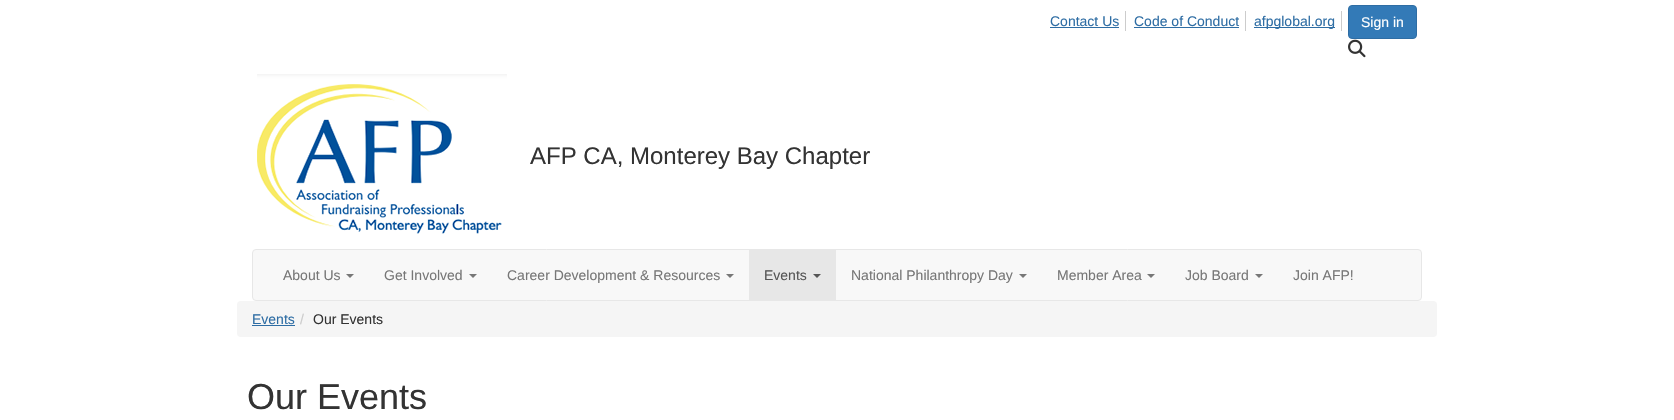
void draw(SkCanvas* canvas) {
	SkPaint fill;
	fill.setAntiAlias(true);
	auto makeFont = [&](const char* family, int weight, float size, bool italic = false) {
		SkFontStyle style(weight, SkFontStyle::kNormal_Width,
			italic ? SkFontStyle::kItalic_Slant : SkFontStyle::kUpright_Slant);
		SkFont result(fontMgr->matchFamilyStyle(family, style), size);
		result.setSubpixel(true);
		return result;
	};
	auto text = [&](const char* s, float x, float y, const SkFont& font) {
		canvas->drawString(s, x, y, font, fill);
	};
	auto box = [&](float l, float t, float r, float b) {
		canvas->drawRect(SkRect::MakeLTRB(l, t, r, b), fill);
	};
	auto roundBox = [&](float l, float t, float r, float b, float radius) {
		canvas->drawRoundRect(SkRect::MakeLTRB(l, t, r, b), radius, radius, fill);
	};
	auto picture = [&](const char* path, float l, float t, float r, float b) {
		auto image = SkImages::DeferredFromEncodedData(SkData::MakeFromFileName(path));
		canvas->drawImageRect(image, SkRect::MakeLTRB(l, t, r, b), SkSamplingOptions());
	};
	canvas->clear(0xFFFFFFFF);
	fill.setColor(0xFFCCCCCC);
	box(1125, 11, 1126, 31);
	fill.setColor(0xFF2E6DA4);
	box(1050, 27, 1119, 28);
	fill.setColor(0xFFCCCCCC);
	box(1245, 11, 1246, 31);
	fill.setColor(0xFF2E6DA4);
	box(1134, 27, 1239, 28);
	fill.setColor(0xFFCCCCCC);
	box(1341, 11, 1342, 31);
	fill.setColor(0xFF2E6DA4);
	box(1254, 27, 1335, 28);
	fill.setColor(0xFF337AB7);
	canvas->drawRoundRect(SkRect::MakeLTRB(1348.5f, 5.5f, 1416.5f, 38.5f), 3.5f, 3.5f, fill);
	fill.setStyle(SkPaint::kStroke_Style);
	fill.setStrokeWidth(1);
	fill.setColor(0xFF2E6DA4);
	canvas->drawRoundRect(SkRect::MakeLTRB(1348.5f, 5.5f, 1416.5f, 38.5f), 3.5f, 3.5f, fill);
	picture("image0.png", 1348, 39, 1366, 58);
	picture("image1.png", 257, 74, 507, 234);
	fill.setStyle(SkPaint::kFill_Style);
	fill.setColor(0xFFF8F8F8);
	canvas->drawRoundRect(SkRect::MakeLTRB(252.5f, 249.5f, 1421.5f, 300.5f), 3.5f, 3.5f, fill);
	fill.setStyle(SkPaint::kStroke_Style);
	fill.setColor(0xFFE7E7E7);
	canvas->drawRoundRect(SkRect::MakeLTRB(252.5f, 249.5f, 1421.5f, 300.5f), 3.5f, 3.5f, fill);
	fill.setStyle(SkPaint::kFill_Style);
	fill.setColor(0xFF777777);
	canvas->drawPath(SkPathBuilder().moveTo(346, 274).lineTo(354, 274).lineTo(350, 278).close().detach(), fill);
	canvas->drawPath(SkPathBuilder().moveTo(469, 274).lineTo(477, 274).lineTo(473, 278).close().detach(), fill);
	canvas->drawPath(SkPathBuilder().moveTo(726, 274).lineTo(734, 274).lineTo(730, 278).close().detach(), fill);
	fill.setColor(0xFFE7E7E7);
	box(749, 250, 836, 300);
	fill.setColor(0xFF555555);
	canvas->drawPath(SkPathBuilder().moveTo(813, 274).lineTo(821, 274).lineTo(817, 278).close().detach(), fill);
	fill.setColor(0xFF777777);
	canvas->drawPath(SkPathBuilder().moveTo(1019, 274).lineTo(1027, 274).lineTo(1023, 278).close().detach(), fill);
	canvas->drawPath(SkPathBuilder().moveTo(1147, 274).lineTo(1155, 274).lineTo(1151, 278).close().detach(), fill);
	canvas->drawPath(SkPathBuilder().moveTo(1255, 274).lineTo(1263, 274).lineTo(1259, 278).close().detach(), fill);
	fill.setColor(0xFFF5F5F5);
	roundBox(237, 301, 1437, 337, 4);
	fill.setColor(0xFF2E6DA4);
	box(252, 325, 295, 326);
	auto font1 = makeFont("Liberation Sans", 400, 14);
	text("Contact Us", 1050, 26, font1);
	text("Code of Conduct", 1134, 26, font1);
	text("afpglobal.org", 1254, 26, font1);
	fill.setColor(0xFFFFFFFF);
	text("Sign in", 1361, 27, font1);
	auto font2 = makeFont("Liberation Sans", 400, 24);
	fill.setColor(0xFF333333);
	text("AFP CA, Monterey Bay Chapter", 530, 164, font2);
	fill.setColor(0xFF777777);
	text("About Us", 283, 280, font1);
	text("Get Involved", 384, 280, font1);
	text("Career Development & Resources", 507, 280, font1);
	fill.setColor(0xFF555555);
	text("Events", 764, 280, font1);
	fill.setColor(0xFF777777);
	text("National Philanthropy Day", 851, 280, font1);
	text("Member Area", 1057, 280, font1);
	text("Job Board", 1185, 280, font1);
	text("Join AFP!", 1293, 280, font1);
	fill.setColor(0xFF2E6DA4);
	text("Events", 252, 324, font1);
	fill.setColor(0xFFCCCCCC);
	text("/", 300, 324, font1);
	fill.setColor(0xFF333333);
	text("Our Events", 313, 324, font1);
	auto font3 = makeFont("Liberation Sans", 400, 36);
	text("Our Events", 247, 409, font3);
}
